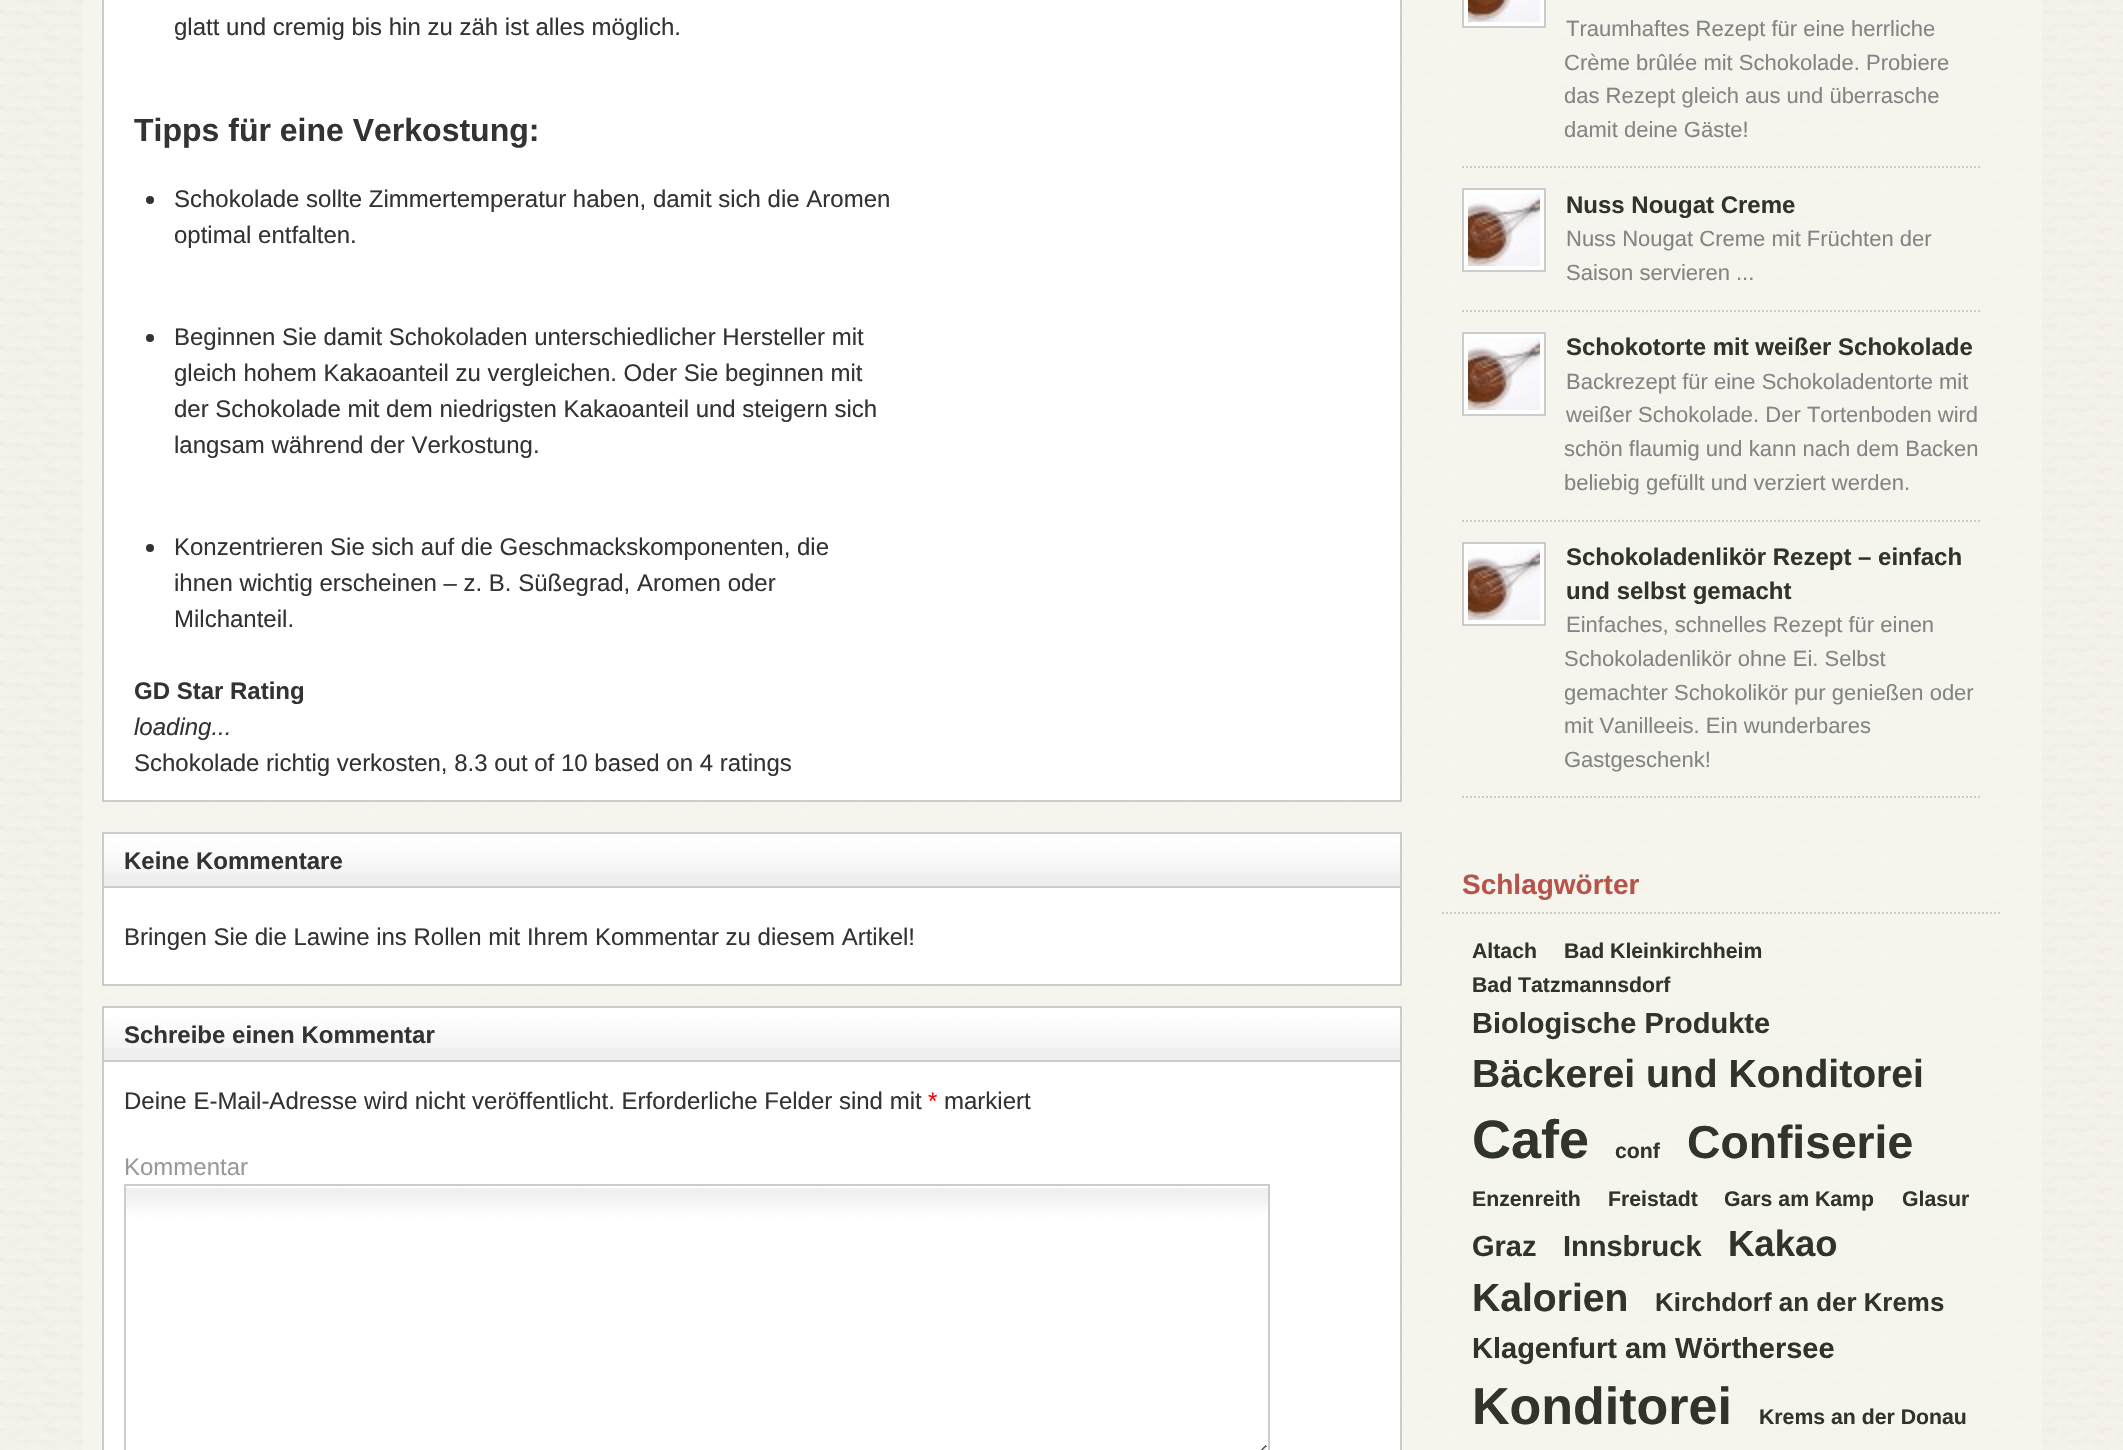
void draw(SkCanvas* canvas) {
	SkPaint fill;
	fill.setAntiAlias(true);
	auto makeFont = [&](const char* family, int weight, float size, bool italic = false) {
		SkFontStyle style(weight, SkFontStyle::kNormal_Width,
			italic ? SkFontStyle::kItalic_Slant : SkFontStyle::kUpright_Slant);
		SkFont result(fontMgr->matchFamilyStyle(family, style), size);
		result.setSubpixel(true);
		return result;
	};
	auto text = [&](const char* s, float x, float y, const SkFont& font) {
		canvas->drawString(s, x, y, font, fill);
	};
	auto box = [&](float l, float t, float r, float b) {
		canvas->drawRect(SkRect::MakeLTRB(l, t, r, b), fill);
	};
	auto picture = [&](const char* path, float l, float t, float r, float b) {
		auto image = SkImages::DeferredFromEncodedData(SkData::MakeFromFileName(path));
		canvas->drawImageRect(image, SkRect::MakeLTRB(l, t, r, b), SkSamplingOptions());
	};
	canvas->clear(0xFFFFFFFF);
	picture("image0.png", 0, 0, 2123, 1450);
	fill.setColor(0xFFFFFFFF);
	canvas->drawRect(SkRect::MakeLTRB(103, -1, 1401, 801), fill);
	fill.setStyle(SkPaint::kStroke_Style);
	fill.setStrokeWidth(2);
	fill.setColor(0xFFCCCCCC);
	canvas->drawRect(SkRect::MakeLTRB(103, -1, 1401, 801), fill);
	fill.setStyle(SkPaint::kFill_Style);
	fill.setColor(0xFF333333);
	canvas->drawCircle(150, 200, 4, fill);
	canvas->drawCircle(150, 338, 4, fill);
	canvas->drawCircle(150, 548, 4, fill);
	fill.setColor(0xFFEFEFEF);
	box(104, 874, 1400, 886);
	picture("image1.png", 104, 834, 1400, 874);
	fill.setStyle(SkPaint::kStroke_Style);
	fill.setColor(0xFFCCCCCC);
	canvas->drawRect(SkRect::MakeLTRB(103, 833, 1401, 887), fill);
	fill.setStyle(SkPaint::kFill_Style);
	fill.setColor(0xFFFFFFFF);
	box(104, 888, 1400, 984);
	fill.setColor(0xFFCCCCCC);
	box(1400, 888, 1402, 986);
	box(102, 984, 1402, 986);
	box(102, 888, 104, 986);
	fill.setColor(0xFFEFEFEF);
	box(104, 1048, 1400, 1060);
	picture("image1.png", 104, 1008, 1400, 1048);
	fill.setStyle(SkPaint::kStroke_Style);
	fill.setColor(0xFFCCCCCC);
	canvas->drawRect(SkRect::MakeLTRB(103, 1007, 1401, 1061), fill);
	fill.setStyle(SkPaint::kFill_Style);
	fill.setColor(0xFFFFFFFF);
	box(104, 1062, 1400, 1450);
	fill.setColor(0xFFCCCCCC);
	box(1400, 1062, 1402, 1450);
	box(102, 1062, 104, 1450);
	picture("image2.png", 126, 1188, 1268, 1450);
	fill.setStyle(SkPaint::kStroke_Style);
	canvas->drawRect(SkRect::MakeLTRB(125, 1185, 1269, 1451), fill);
	fill.setPathEffect(SkDashPathEffect::Make({{2, 2}}, 0));
	canvas->drawPath(SkPathBuilder().moveTo(1462, 167).lineTo(1982, 167).detach(), fill);
	fill.setPathEffect(nullptr);
	fill.setStyle(SkPaint::kFill_Style);
	fill.setColor(0xFFFFFFFF);
	canvas->drawRect(SkRect::MakeLTRB(1463, -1, 1545, 27), fill);
	fill.setStyle(SkPaint::kStroke_Style);
	fill.setColor(0xFFCCCCCC);
	canvas->drawRect(SkRect::MakeLTRB(1463, -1, 1545, 27), fill);
	picture("image3.png", 1468, 0, 1540, 22);
	fill.setPathEffect(SkDashPathEffect::Make({{2, 2}}, 0));
	canvas->drawPath(SkPathBuilder().moveTo(1462, 311).lineTo(1982, 311).detach(), fill);
	fill.setPathEffect(nullptr);
	fill.setStyle(SkPaint::kFill_Style);
	fill.setColor(0xFFFFFFFF);
	canvas->drawRect(SkRect::MakeLTRB(1463, 189, 1545, 271), fill);
	fill.setStyle(SkPaint::kStroke_Style);
	fill.setColor(0xFFCCCCCC);
	canvas->drawRect(SkRect::MakeLTRB(1463, 189, 1545, 271), fill);
	picture("image4.png", 1468, 194, 1540, 266);
	fill.setPathEffect(SkDashPathEffect::Make({{2, 2}}, 0));
	canvas->drawPath(SkPathBuilder().moveTo(1462, 521).lineTo(1982, 521).detach(), fill);
	fill.setPathEffect(nullptr);
	fill.setStyle(SkPaint::kFill_Style);
	fill.setColor(0xFFFFFFFF);
	canvas->drawRect(SkRect::MakeLTRB(1463, 333, 1545, 415), fill);
	fill.setStyle(SkPaint::kStroke_Style);
	fill.setColor(0xFFCCCCCC);
	canvas->drawRect(SkRect::MakeLTRB(1463, 333, 1545, 415), fill);
	picture("image4.png", 1468, 338, 1540, 410);
	fill.setPathEffect(SkDashPathEffect::Make({{2, 2}}, 0));
	canvas->drawPath(SkPathBuilder().moveTo(1462, 797).lineTo(1982, 797).detach(), fill);
	fill.setPathEffect(nullptr);
	fill.setStyle(SkPaint::kFill_Style);
	fill.setColor(0xFFFFFFFF);
	canvas->drawRect(SkRect::MakeLTRB(1463, 543, 1545, 625), fill);
	fill.setStyle(SkPaint::kStroke_Style);
	fill.setColor(0xFFCCCCCC);
	canvas->drawRect(SkRect::MakeLTRB(1463, 543, 1545, 625), fill);
	picture("image4.png", 1468, 548, 1540, 620);
	fill.setPathEffect(SkDashPathEffect::Make({{2, 2}}, 0));
	canvas->drawPath(SkPathBuilder().moveTo(1442, 913).lineTo(2002, 913).detach(), fill);
	fill.setPathEffect(nullptr);
	auto font1 = makeFont("Liberation Sans", 400, 24);
	fill.setStyle(SkPaint::kFill_Style);
	fill.setColor(0xFF333333);
	text("glatt und cremig bis hin zu zäh ist alles möglich.", 174, 35, font1);
	auto font2 = makeFont("Liberation Sans", 700, 32);
	text("Tipps für eine Verkostung:", 134, 141, font2);
	text("Schokolade sollte Zimmertemperatur haben, damit sich die Aromen", 174, 207, font1);
	text("optimal entfalten.", 174, 243, font1);
	text("Beginnen Sie damit Schokoladen unterschiedlicher Hersteller mit", 174, 345, font1);
	text("gleich hohem Kakaoanteil zu vergleichen. Oder Sie beginnen mit", 174, 381, font1);
	text("der Schokolade mit dem niedrigsten Kakaoanteil und steigern sich", 174, 417, font1);
	text("langsam während der Verkostung.", 174, 453, font1);
	text("Konzentrieren Sie sich auf die Geschmackskomponenten, die", 174, 555, font1);
	text("ihnen wichtig erscheinen – z. B. Süßegrad, Aromen oder", 174, 591, font1);
	text("Milchanteil.", 174, 627, font1);
	auto font3 = makeFont("Liberation Sans", 700, 24);
	text("GD Star Rating", 134, 699, font3);
	auto font4 = makeFont("Liberation Sans", 400, 24, true);
	text("loading...", 134, 735, font4);
	text("Schokolade richtig verkosten, 8.3 out of 10 based on 4 ratings", 134, 771, font1);
	text("Keine Kommentare", 124, 869, font3);
	text("Bringen Sie die Lawine ins Rollen mit Ihrem Kommentar zu diesem Artikel!", 124, 945, font1);
	text("Schreibe einen Kommentar", 124, 1043, font3);
	text("Deine E-Mail-Adresse wird nicht veröffentlicht. Erforderliche Felder sind mit", 124, 1109, font1);
	fill.setColor(0xFFFF0000);
	text("*", 928, 1109, font1);
	fill.setColor(0xFF333333);
	text("markiert", 944, 1109, font1);
	fill.setColor(0xFF999999);
	text("Kommentar", 124, 1175, font1);
	auto font5 = makeFont("Liberation Sans", 400, 22);
	fill.setColor(0xFF848485);
	text("Traumhaftes Rezept für eine herrliche", 1566, 36, font5);
	text("Crème brûlée mit Schokolade. Probiere", 1564, 70, font5);
	text("das Rezept gleich aus und überrasche", 1564, 103, font5);
	text("damit deine Gäste!", 1564, 137, font5);
	fill.setColor(0xFF313428);
	text("Nuss Nougat Creme", 1566, 213, font3);
	fill.setColor(0xFF848485);
	text("Nuss Nougat Creme mit Früchten der", 1566, 246, font5);
	text("Saison servieren ...", 1566, 280, font5);
	fill.setColor(0xFF313428);
	text("Schokotorte mit weißer Schokolade", 1566, 355, font3);
	fill.setColor(0xFF848485);
	text("Backrezept für eine Schokoladentorte mit", 1566, 389, font5);
	text("weißer Schokolade. Der Tortenboden wird", 1566, 422, font5);
	text("schön flaumig und kann nach dem Backen", 1564, 456, font5);
	text("beliebig gefüllt und verziert werden.", 1564, 490, font5);
	fill.setColor(0xFF313428);
	text("Schokoladenlikör Rezept – einfach", 1566, 565, font3);
	text("und selbst gemacht", 1566, 599, font3);
	fill.setColor(0xFF848485);
	text("Einfaches, schnelles Rezept für einen", 1566, 632, font5);
	text("Schokoladenlikör ohne Ei. Selbst", 1564, 666, font5);
	text("gemachter Schokolikör pur genießen oder", 1564, 700, font5);
	text("mit Vanilleeis. Ein wunderbares", 1564, 733, font5);
	text("Gastgeschenk!", 1564, 767, font5);
	auto font6 = makeFont("Liberation Sans", 700, 28);
	fill.setColor(0xFFB8534A);
	text("Schlagwörter", 1462, 894, font6);
	auto font7 = makeFont("Liberation Sans", 700, 21.25f);
	fill.setColor(0xFF313428);
	text("Altach", 1472, 958, font7);
	text("Bad Kleinkirchheim", 1564, 958, font7);
	text("Bad Tatzmannsdorf", 1472, 992, font7);
	auto font8 = makeFont("Liberation Sans", 700, 29);
	text("Biologische Produkte", 1472, 1033, font8);
	auto font9 = makeFont("Liberation Sans", 700, 39.1f);
	text("Bäckerei und Konditorei", 1472, 1087, font9);
	auto font10 = makeFont("Liberation Sans", 700, 54);
	text("Cafe", 1472, 1158, font10);
	text("conf", 1615, 1158, font7);
	auto font11 = makeFont("Liberation Sans", 700, 46.25f);
	text("Confiserie", 1687, 1158, font11);
	text("Enzenreith", 1472, 1206, font7);
	text("Freistadt", 1608, 1206, font7);
	text("Gars am Kamp", 1724, 1206, font7);
	text("Glasur", 1902, 1206, font7);
	text("Graz", 1472, 1256, font8);
	text("Innsbruck", 1563, 1256, font8);
	auto font12 = makeFont("Liberation Sans", 700, 36.5f);
	text("Kakao", 1728, 1256, font12);
	text("Kalorien", 1472, 1311, font9);
	auto font13 = makeFont("Liberation Sans", 700, 25.9f);
	text("Kirchdorf an der Krems", 1655, 1311, font13);
	text("Klagenfurt am Wörthersee", 1472, 1358, font8);
	auto font14 = makeFont("Liberation Sans", 700, 52);
	text("Konditorei", 1472, 1424, font14);
	text("Krems an der Donau", 1759, 1424, font7);
}
